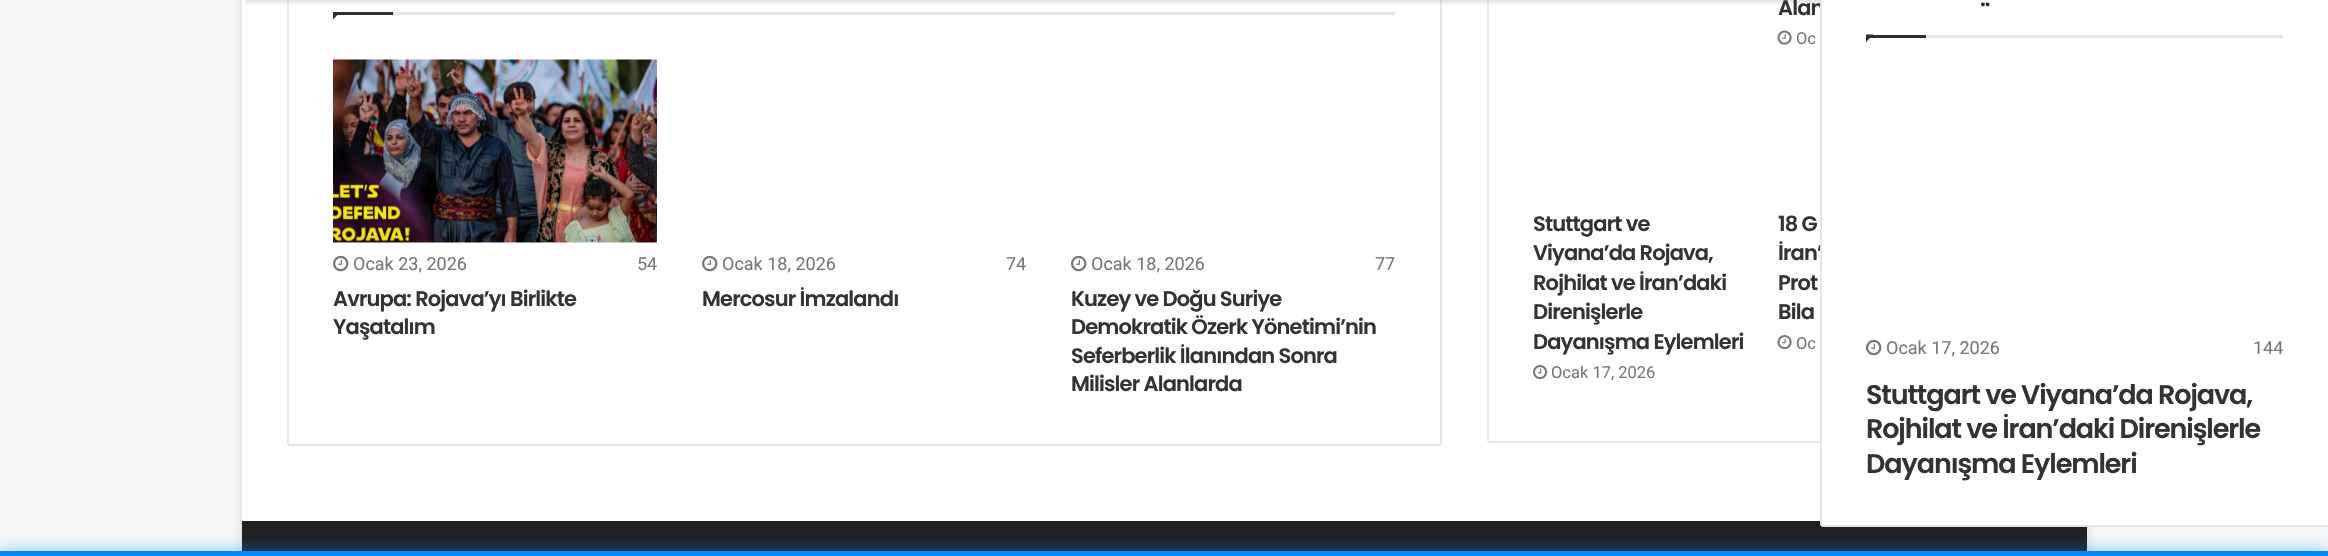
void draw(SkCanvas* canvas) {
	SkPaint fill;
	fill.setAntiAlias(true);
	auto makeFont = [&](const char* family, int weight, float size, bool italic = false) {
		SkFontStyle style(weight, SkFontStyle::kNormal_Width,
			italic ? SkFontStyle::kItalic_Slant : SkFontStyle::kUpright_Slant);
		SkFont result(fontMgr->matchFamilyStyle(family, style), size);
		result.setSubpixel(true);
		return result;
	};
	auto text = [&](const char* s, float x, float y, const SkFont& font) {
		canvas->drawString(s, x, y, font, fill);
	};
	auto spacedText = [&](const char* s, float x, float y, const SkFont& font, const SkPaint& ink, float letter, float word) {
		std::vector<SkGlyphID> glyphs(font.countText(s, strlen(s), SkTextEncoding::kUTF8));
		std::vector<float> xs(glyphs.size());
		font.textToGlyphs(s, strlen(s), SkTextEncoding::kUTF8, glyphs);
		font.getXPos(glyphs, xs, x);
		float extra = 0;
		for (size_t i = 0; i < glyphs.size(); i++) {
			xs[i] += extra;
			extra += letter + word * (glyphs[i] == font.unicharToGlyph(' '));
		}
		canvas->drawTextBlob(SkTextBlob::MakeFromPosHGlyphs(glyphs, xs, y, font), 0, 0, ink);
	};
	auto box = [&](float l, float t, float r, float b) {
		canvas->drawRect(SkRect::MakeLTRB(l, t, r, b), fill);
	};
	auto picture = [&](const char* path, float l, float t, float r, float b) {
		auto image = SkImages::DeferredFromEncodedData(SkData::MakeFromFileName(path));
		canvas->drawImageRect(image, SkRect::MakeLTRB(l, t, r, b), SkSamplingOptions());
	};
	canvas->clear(0xFFF7F7F7);
	fill.setColor(0x80ABABAB);
	fill.setMaskFilter(SkMaskFilter::MakeBlur(kNormal_SkBlurStyle, 5));
	canvas->drawRect(SkRect::MakeLTRB(242, -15, 2087, 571), fill);
	fill.setMaskFilter(nullptr);
	fill.setColor(0xFFFFFFFF);
	box(242, 0, 1820, 521);
	fill.setStyle(SkPaint::kStroke_Style);
	fill.setStrokeWidth(2);
	fill.setColor(0xFFE6E6E6);
	canvas->drawRoundRect(SkRect::MakeLTRB(288, -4, 1441, 445), 2, 2, fill);
	canvas->drawRoundRect(SkRect::MakeLTRB(1488, -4, 2041, 442), 2, 2, fill);
	fill.setStyle(SkPaint::kFill_Style);
	fill.setColor(0x1A000000);
	fill.setMaskFilter(SkMaskFilter::MakeBlur(kNormal_SkBlurStyle, 1.5f));
	canvas->drawRect(SkRect::MakeLTRB(245, -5, 2084, 3), fill);
	fill.setMaskFilter(nullptr);
	fill.setColor(0xFFE6E6E6);
	box(393, 12, 1395, 15);
	fill.setColor(0xFF2C2F34);
	canvas->drawPath(SkPathBuilder().moveTo(333, 12).lineTo(340.5f, 12).lineTo(333, 19.5f).close().detach(), fill);
	box(333, 12, 393, 15);
	picture("image0.png", 333, 59, 657, 243);
	picture("image1.png", 333, 255, 349, 272);
	picture("image1.png", 702, 255, 718, 272);
	picture("image1.png", 1071, 255, 1087, 272);
	picture("image2.png", 1777, 30, 1792, 45);
	picture("image3.png", 1533, 365, 1548, 380);
	picture("image4.png", 1777, 335, 1792, 350);
	fill.setColor(0xFF1F2024);
	box(242, 521, 2087, 551);
	fill.setColor(0xB30088FF);
	fill.setMaskFilter(SkMaskFilter::MakeBlur(kNormal_SkBlurStyle, 7.5f));
	canvas->drawRect(SkRect::MakeLTRB(0, 551, 2328, 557), fill);
	fill.setMaskFilter(nullptr);
	fill.setColor(0xFF0088FF);
	box(0, 551, 2328, 556);
	auto font1 = makeFont("Roboto", 400, 18);
	fill.setColor(0xFF777777);
	text("Ocak 23, 2026", 353, 270, font1);
	text("54", 637, 270, font1);
	auto font2 = makeFont("Poppins", 600, 21);
	fill.setColor(0xFF333333);
	spacedText("Avrupa: Rojava’yı Birlikte", 333, 306, font2, fill, -0.85f, 0);
	spacedText("Yaşatalım", 333, 334, font2, fill, -0.85f, 0);
	fill.setColor(0xFF777777);
	text("Ocak 18, 2026", 722, 270, font1);
	text("74", 1006, 270, font1);
	fill.setColor(0xFF333333);
	spacedText("Mercosur İmzalandı", 702, 306, font2, fill, -0.85f, 0);
	fill.setColor(0xFF777777);
	text("Ocak 18, 2026", 1091, 270, font1);
	text("77", 1375, 270, font1);
	fill.setColor(0xFF333333);
	spacedText("Kuzey ve Doğu Suriye", 1071, 306, font2, fill, -0.85f, 0);
	spacedText("Demokratik Özerk Yönetimi’nin", 1071, 334, font2, fill, -0.85f, 0);
	spacedText("Seferberlik İlanından Sonra", 1071, 363, font2, fill, -0.85f, 0);
	spacedText("Milisler Alanlarda", 1071, 391, font2, fill, -0.85f, 0);
	spacedText("Alan", 1778, 15, font2, fill, -0.85f, 0);
	auto font3 = makeFont("Roboto", 400, 16.5f);
	fill.setColor(0xFF777777);
	text("Oc", 1796, 44, font3);
	fill.setColor(0xFF333333);
	spacedText("Stuttgart ve", 1533, 231, font2, fill, -0.85f, 0);
	spacedText("Viyana’da Rojava,", 1533, 260, font2, fill, -0.85f, 0);
	spacedText("Rojhilat ve İran’daki", 1533, 290, font2, fill, -0.85f, 0);
	spacedText("Direnişlerle", 1533, 319, font2, fill, -0.85f, 0);
	spacedText("Dayanışma Eylemleri", 1533, 349, font2, fill, -0.85f, 0);
	fill.setColor(0xFF777777);
	text("Ocak 17, 2026", 1551, 378, font3);
	fill.setColor(0xFF333333);
	spacedText("18 G", 1778, 231, font2, fill, -0.85f, 0);
	spacedText("İran’", 1778, 260, font2, fill, -0.85f, 0);
	spacedText("Prot", 1778, 290, font2, fill, -0.85f, 0);
	spacedText("Bila", 1778, 319, font2, fill, -0.85f, 0);
	fill.setColor(0xFF777777);
	text("Oc", 1796, 349, font3);
	fill.setColor(0xFFFFFFFF);
	canvas->drawPath(SkPathBuilder().moveTo(1823, -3).lineTo(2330, -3).lineTo(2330, 527).lineTo(1823, 527).cubicTo(1821.5f, 527, 1820, 525.5f, 1820, 524).lineTo(1820, 0).cubicTo(1820, -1.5f, 1821.5f, -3, 1823, -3).close().detach(), fill);
	fill.setStyle(SkPaint::kStroke_Style);
	fill.setColor(0x1A000000);
	canvas->drawPath(SkPathBuilder().moveTo(1823, -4).lineTo(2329, -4).lineTo(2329, 526).lineTo(1823, 526).cubicTo(1822, 526, 1821, 525, 1821, 524).lineTo(1821, -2).cubicTo(1821, -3, 1822, -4, 1823, -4).close().detach(), fill);
	fill.setStyle(SkPaint::kFill_Style);
	fill.setColor(0xFFE6E6E6);
	box(1926, 35, 2283, 38);
	auto font4 = makeFont("Poppins", 600, 22);
	fill.setColor(0xFF2C2F34);
	spacedText("..", 1980, 6, font4, fill, -1, 0);
	canvas->drawPath(SkPathBuilder().moveTo(1866, 34.5f).lineTo(1873.5f, 34.5f).lineTo(1866, 42).close().detach(), fill);
	box(1866, 35, 1926, 38);
	picture("image1.png", 1866, 339, 1882, 356);
	fill.setColor(0xFF777777);
	text("Ocak 17, 2026", 1886, 354, font1);
	text("144", 2253, 354, font1);
	auto font5 = makeFont("Poppins", 600, 27);
	fill.setColor(0xFF333333);
	spacedText("Stuttgart ve Viyana’da Rojava,", 1866, 404, font5, fill, -1.1f, 0);
	spacedText("Rojhilat ve İran’daki Direnişlerle", 1866, 438, font5, fill, -1.1f, 0);
	spacedText("Dayanışma Eylemleri", 1866, 473, font5, fill, -1.1f, 0);
}
